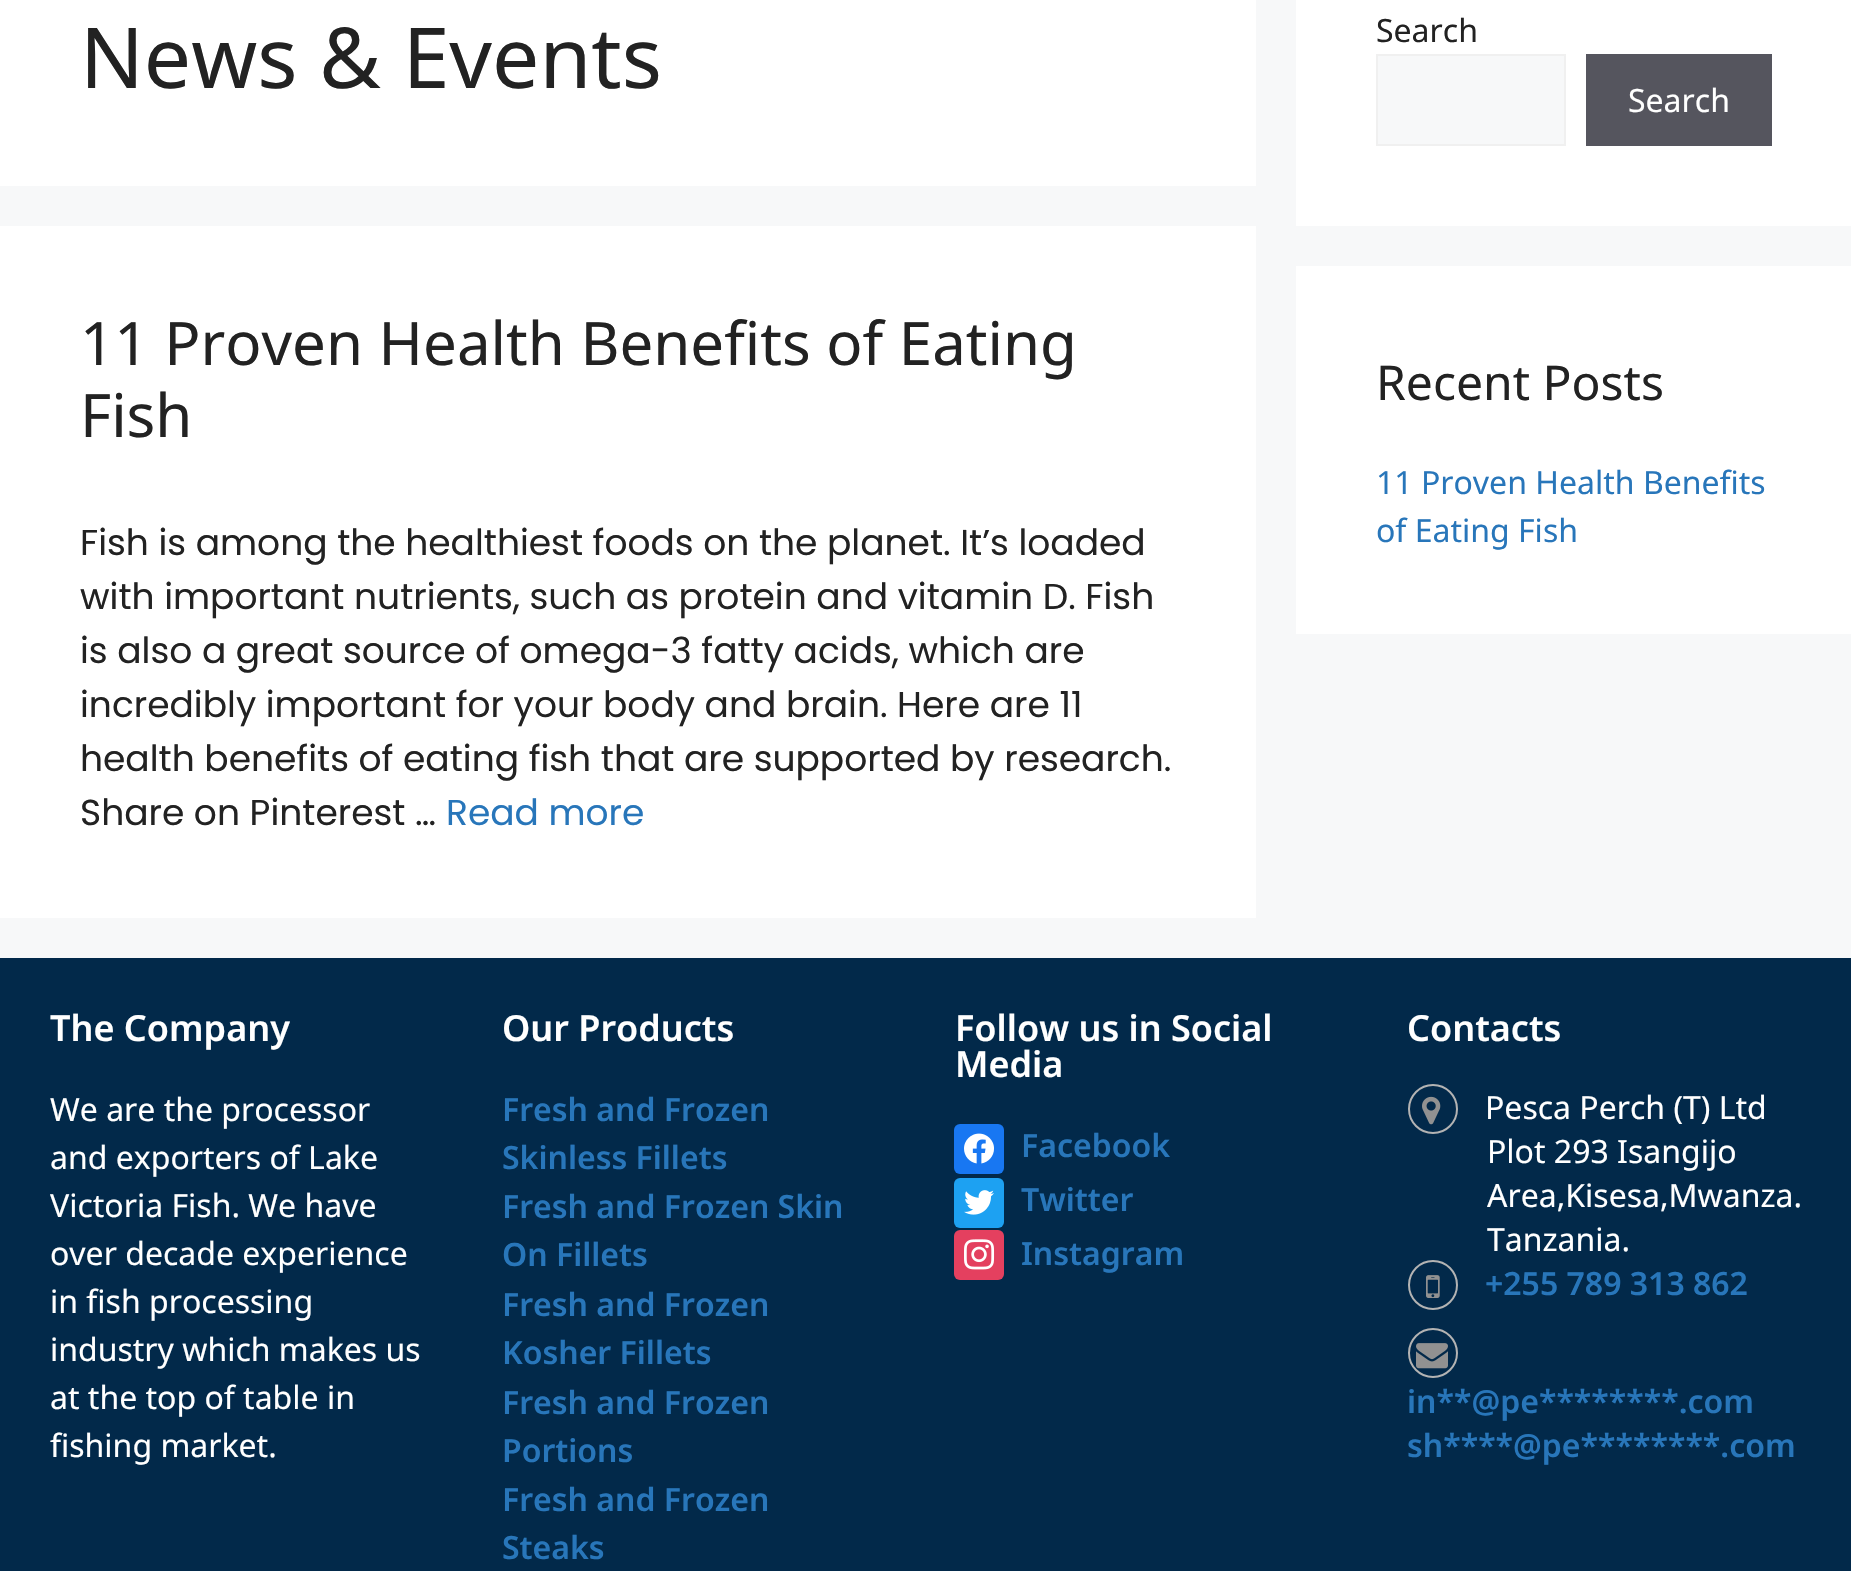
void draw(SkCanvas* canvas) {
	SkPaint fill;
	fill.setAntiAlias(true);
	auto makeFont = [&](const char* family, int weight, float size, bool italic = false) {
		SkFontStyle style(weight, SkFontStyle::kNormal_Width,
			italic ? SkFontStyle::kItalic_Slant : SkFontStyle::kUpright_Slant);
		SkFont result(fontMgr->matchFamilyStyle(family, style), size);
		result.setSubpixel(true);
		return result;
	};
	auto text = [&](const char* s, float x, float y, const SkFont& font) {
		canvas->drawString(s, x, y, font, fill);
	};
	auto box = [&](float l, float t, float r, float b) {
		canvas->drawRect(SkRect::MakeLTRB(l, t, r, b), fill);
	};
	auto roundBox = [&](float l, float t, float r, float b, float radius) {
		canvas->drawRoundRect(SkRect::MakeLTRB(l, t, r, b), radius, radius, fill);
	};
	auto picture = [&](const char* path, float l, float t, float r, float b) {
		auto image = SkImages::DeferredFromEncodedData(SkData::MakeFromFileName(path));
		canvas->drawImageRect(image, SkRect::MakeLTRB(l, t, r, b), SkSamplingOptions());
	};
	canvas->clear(0xFFF7F8F9);
	fill.setColor(0xFFFFFFFF);
	box(0, 0, 1256, 186);
	box(0, 226, 1256, 918);
	box(1296, 0, 1851, 226);
	fill.setColor(0xFFF7F8F9);
	canvas->drawRect(SkRect::MakeLTRB(1377, 55, 1565, 145), fill);
	fill.setStyle(SkPaint::kStroke_Style);
	fill.setStrokeWidth(2);
	fill.setColor(0xFFF0F0F0);
	canvas->drawRect(SkRect::MakeLTRB(1377, 55, 1565, 145), fill);
	fill.setStyle(SkPaint::kFill_Style);
	fill.setColor(0xFF55555E);
	box(1586, 54, 1772, 146);
	fill.setColor(0xFFFFFFFF);
	box(1296, 266, 1851, 634);
	fill.setColor(0xFF02294A);
	box(0, 958, 1851, 1571);
	fill.setColor(0xFF1877F2);
	roundBox(954, 1124, 1004, 1174, 6);
	picture("image0.png", 964, 1133, 994, 1164);
	fill.setColor(0xFF1DA1F2);
	roundBox(954, 1178, 1004, 1228, 6);
	picture("image1.png", 964, 1190, 994, 1215);
	fill.setColor(0xFFE4405F);
	roundBox(954, 1230, 1004, 1280, 6);
	picture("image2.png", 964, 1239, 995, 1270);
	fill.setStyle(SkPaint::kStroke_Style);
	fill.setColor(0xFFB3B3B3);
	canvas->drawCircle(1433, 1109, 24, fill);
	picture("image3.png", 1422, 1096, 1441, 1125);
	canvas->drawCircle(1433, 1285, 24, fill);
	picture("image4.png", 1426, 1275, 1440, 1298);
	canvas->drawCircle(1433, 1353, 24, fill);
	picture("image5.png", 1416, 1343, 1448, 1369);
	auto font1 = makeFont("Noto Sans", 400, 84);
	fill.setStyle(SkPaint::kFill_Style);
	fill.setColor(0xFF222222);
	text("News & Events", 80, 88, font1);
	auto font2 = makeFont("Noto Sans", 400, 60);
	text("11 Proven Health Benefits of Eating", 80, 365, font2);
	text("Fish", 80, 437, font2);
	auto font3 = makeFont("Poppins", 400, 36);
	text("Fish is among the healthiest foods on the planet. It’s loaded", 80, 555, font3);
	text("with important nutrients, such as protein and vitamin D. Fish", 80, 609, font3);
	text("is also a great source of omega-3 fatty acids, which are", 80, 663, font3);
	text("incredibly important for your body and brain. Here are 11", 80, 717, font3);
	text("health benefits of eating fish that are supported by research.", 80, 771, font3);
	text("Share on Pinterest …", 80, 825, font3);
	fill.setColor(0xFF2876BA);
	text("Read more", 446, 825, font3);
	auto font4 = makeFont("Noto Sans", 400, 32);
	fill.setColor(0xFF222222);
	text("Search", 1376, 42, font4);
	fill.setColor(0xFFFFFFFF);
	text("Search", 1628, 112, font4);
	auto font5 = makeFont("Noto Sans", 400, 48);
	fill.setColor(0xFF222222);
	text("Recent Posts", 1376, 400, font5);
	fill.setColor(0xFF2876BA);
	text("11 Proven Health Benefits", 1376, 494, font4);
	text("of Eating Fish", 1376, 542, font4);
	auto font6 = makeFont("Noto Sans", 600, 36);
	fill.setColor(0xFFFFFFFF);
	text("The Company", 50, 1041, font6);
	text("We are the processor", 50, 1121, font4);
	text("and exporters of Lake", 50, 1169, font4);
	text("Victoria Fish. We have", 50, 1217, font4);
	text("over decade experience", 50, 1265, font4);
	text("in fish processing", 50, 1313, font4);
	text("industry which makes us", 50, 1361, font4);
	text("at the top of table in", 50, 1409, font4);
	text("fishing market.", 50, 1457, font4);
	text("Our Products", 502, 1041, font6);
	auto font7 = makeFont("Noto Sans", 600, 32);
	fill.setColor(0xFF2876BA);
	text("Fresh and Frozen", 502, 1121, font7);
	text("Skinless Fillets", 502, 1169, font7);
	text("Fresh and Frozen Skin", 502, 1218, font7);
	text("On Fillets", 502, 1266, font7);
	text("Fresh and Frozen", 502, 1316, font7);
	text("Kosher Fillets", 502, 1364, font7);
	text("Fresh and Frozen", 502, 1414, font7);
	text("Portions", 502, 1462, font7);
	text("Fresh and Frozen", 502, 1511, font7);
	text("Steaks", 502, 1559, font7);
	fill.setColor(0xFFFFFFFF);
	text("Follow us in Social", 955, 1041, font6);
	text("Media", 955, 1077, font6);
	fill.setColor(0xFF2876BA);
	text("Facebook", 1021, 1157, font7);
	text("Twitter", 1021, 1211, font7);
	text("Instagram", 1021, 1265, font7);
	fill.setColor(0xFFFFFFFF);
	text("Contacts", 1407, 1041, font6);
	text("Pesca Perch (T) Ltd", 1485, 1119, font4);
	text("Plot 293 Isangijo", 1487, 1163, font4);
	text("Area,Kisesa,Mwanza.", 1487, 1207, font4);
	text("Tanzania.", 1487, 1251, font4);
	fill.setColor(0xFF2876BA);
	text("+255 789 313 862", 1485, 1295, font7);
	text("in**@pe********.com", 1407, 1413, font7);
	text("sh****@pe********.com", 1407, 1457, font7);
}
